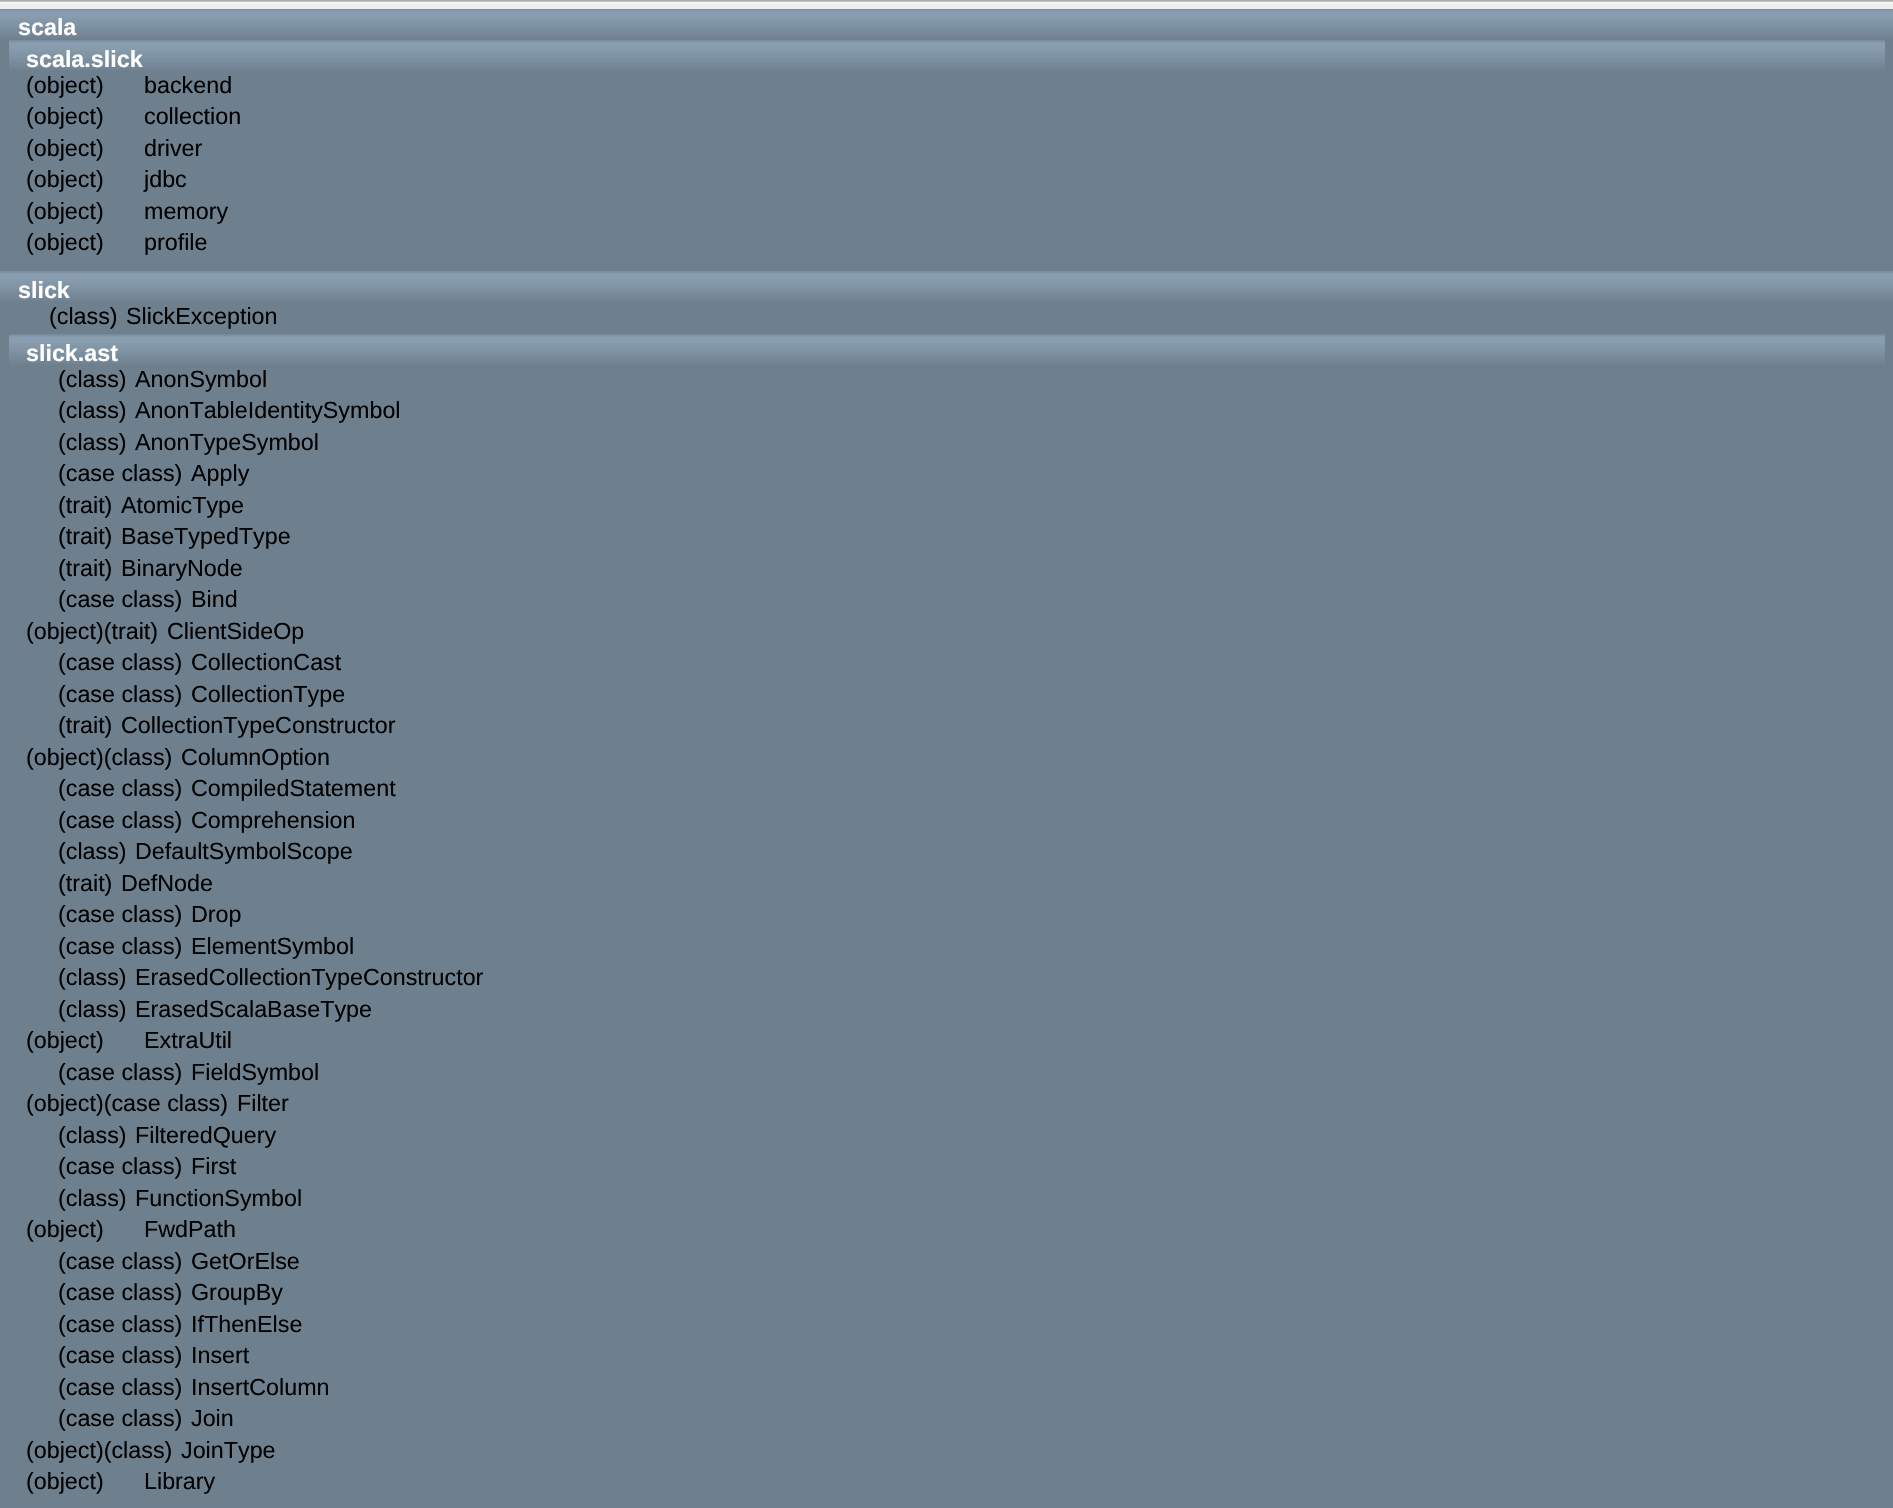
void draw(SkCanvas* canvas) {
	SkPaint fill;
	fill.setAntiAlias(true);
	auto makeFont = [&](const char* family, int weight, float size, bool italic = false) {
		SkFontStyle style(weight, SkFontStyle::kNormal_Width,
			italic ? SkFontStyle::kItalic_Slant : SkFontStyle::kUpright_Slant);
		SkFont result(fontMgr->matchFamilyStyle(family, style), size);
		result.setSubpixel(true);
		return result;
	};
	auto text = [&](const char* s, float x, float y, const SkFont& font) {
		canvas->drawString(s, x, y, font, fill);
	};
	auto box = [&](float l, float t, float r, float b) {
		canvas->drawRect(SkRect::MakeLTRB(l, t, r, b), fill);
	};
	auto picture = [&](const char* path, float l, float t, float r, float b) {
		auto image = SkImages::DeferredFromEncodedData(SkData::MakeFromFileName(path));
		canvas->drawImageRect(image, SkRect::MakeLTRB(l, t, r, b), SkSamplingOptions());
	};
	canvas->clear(0xFFFFFFFF);
	picture("image0.png", 0, 0, 1893, 9);
	fill.setColor(0xFF6E808E);
	box(0, 38, 1893, 271);
	picture("image1.png", 0, 9, 1893, 38);
	picture("image2.png", 9, 40, 1885, 70);
	box(0, 301, 1893, 1508);
	picture("image3.png", 0, 271, 1893, 301);
	picture("image4.png", 9, 334, 1885, 364);
	auto font1 = makeFont("Liberation Sans", 700, 23.3f);
	fill.setColor(0xFFFFFFFF);
	text("scala", 18, 35, font1);
	text("scala.slick", 26, 67, font1);
	auto font2 = makeFont("Liberation Sans", 400, 23.3f);
	fill.setColor(0xFF000000);
	text("(object)", 26, 93, font2);
	text("backend", 144, 93, font2);
	text("(object)", 26, 124, font2);
	text("collection", 144, 124, font2);
	text("(object)", 26, 156, font2);
	text("driver", 144, 156, font2);
	text("(object)", 26, 187, font2);
	text("jdbc", 144, 187, font2);
	text("(object)", 26, 219, font2);
	text("memory", 144, 219, font2);
	text("(object)", 26, 250, font2);
	text("profile", 144, 250, font2);
	fill.setColor(0xFFFFFFFF);
	text("slick", 18, 298, font1);
	fill.setColor(0xFF000000);
	text("(class)", 49, 324, font2);
	text("SlickException", 126, 324, font2);
	fill.setColor(0xFFFFFFFF);
	text("slick.ast", 26, 361, font1);
	fill.setColor(0xFF000000);
	text("(class)", 58, 387, font2);
	text("AnonSymbol", 135, 387, font2);
	text("(class)", 58, 418, font2);
	text("AnonTableIdentitySymbol", 135, 418, font2);
	text("(class)", 58, 450, font2);
	text("AnonTypeSymbol", 135, 450, font2);
	text("(case class)", 58, 481, font2);
	text("Apply", 191, 481, font2);
	text("(trait)", 58, 513, font2);
	text("AtomicType", 121, 513, font2);
	text("(trait)", 58, 544, font2);
	text("BaseTypedType", 121, 544, font2);
	text("(trait)", 58, 576, font2);
	text("BinaryNode", 121, 576, font2);
	text("(case class)", 58, 607, font2);
	text("Bind", 191, 607, font2);
	text("(object)(trait)", 26, 639, font2);
	text("ClientSideOp", 167, 639, font2);
	text("(case class)", 58, 670, font2);
	text("CollectionCast", 191, 670, font2);
	text("(case class)", 58, 702, font2);
	text("CollectionType", 191, 702, font2);
	text("(trait)", 58, 733, font2);
	text("CollectionTypeConstructor", 121, 733, font2);
	text("(object)(class)", 26, 765, font2);
	text("ColumnOption", 181, 765, font2);
	text("(case class)", 58, 796, font2);
	text("CompiledStatement", 191, 796, font2);
	text("(case class)", 58, 828, font2);
	text("Comprehension", 191, 828, font2);
	text("(class)", 58, 859, font2);
	text("DefaultSymbolScope", 135, 859, font2);
	text("(trait)", 58, 891, font2);
	text("DefNode", 121, 891, font2);
	text("(case class)", 58, 922, font2);
	text("Drop", 191, 922, font2);
	text("(case class)", 58, 954, font2);
	text("ElementSymbol", 191, 954, font2);
	text("(class)", 58, 985, font2);
	text("ErasedCollectionTypeConstructor", 135, 985, font2);
	text("(class)", 58, 1017, font2);
	text("ErasedScalaBaseType", 135, 1017, font2);
	text("(object)", 26, 1048, font2);
	text("ExtraUtil", 144, 1048, font2);
	text("(case class)", 58, 1080, font2);
	text("FieldSymbol", 191, 1080, font2);
	text("(object)(case class)", 26, 1111, font2);
	text("Filter", 237, 1111, font2);
	text("(class)", 58, 1143, font2);
	text("FilteredQuery", 135, 1143, font2);
	text("(case class)", 58, 1174, font2);
	text("First", 191, 1174, font2);
	text("(class)", 58, 1206, font2);
	text("FunctionSymbol", 135, 1206, font2);
	text("(object)", 26, 1237, font2);
	text("FwdPath", 144, 1237, font2);
	text("(case class)", 58, 1269, font2);
	text("GetOrElse", 191, 1269, font2);
	text("(case class)", 58, 1300, font2);
	text("GroupBy", 191, 1300, font2);
	text("(case class)", 58, 1332, font2);
	text("IfThenElse", 191, 1332, font2);
	text("(case class)", 58, 1363, font2);
	text("Insert", 191, 1363, font2);
	text("(case class)", 58, 1395, font2);
	text("InsertColumn", 191, 1395, font2);
	text("(case class)", 58, 1426, font2);
	text("Join", 191, 1426, font2);
	text("(object)(class)", 26, 1458, font2);
	text("JoinType", 181, 1458, font2);
	text("(object)", 26, 1489, font2);
	text("Library", 144, 1489, font2);
}
